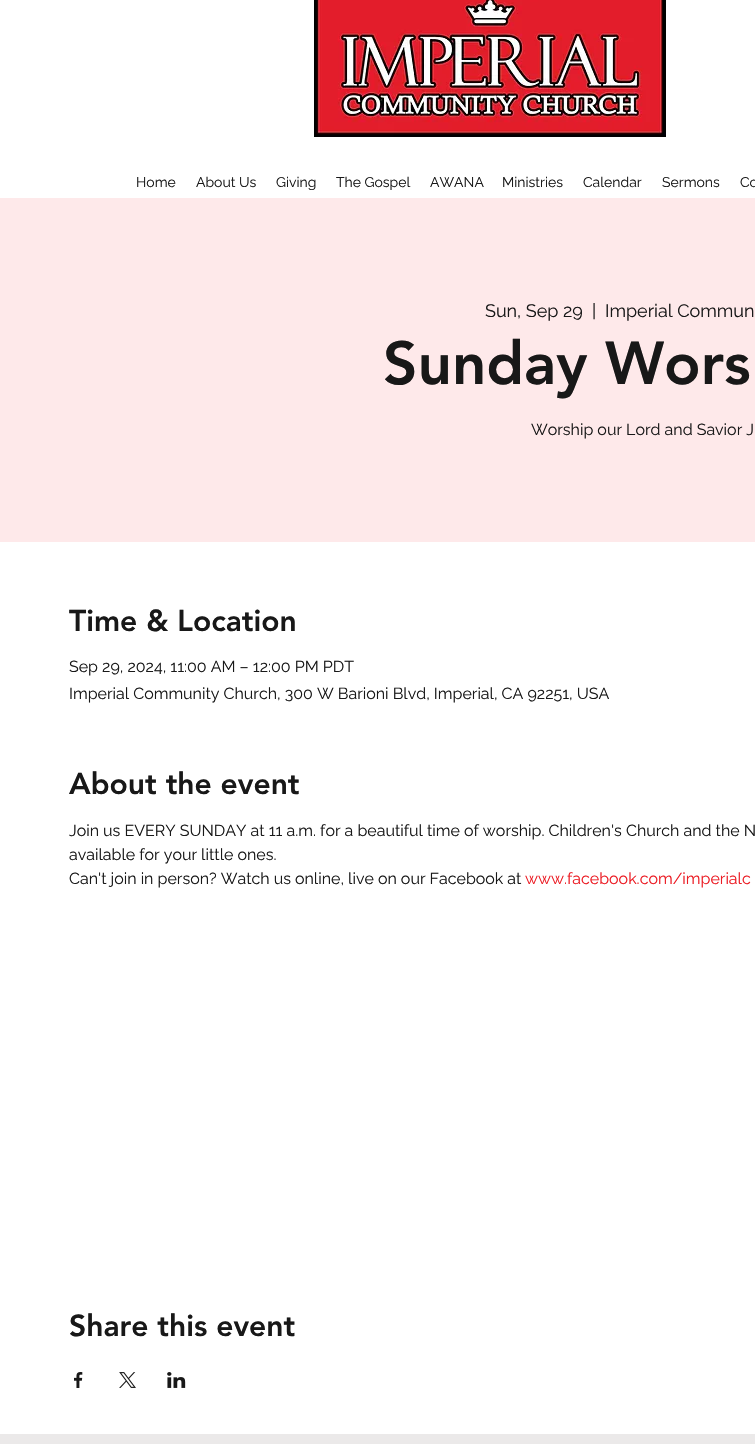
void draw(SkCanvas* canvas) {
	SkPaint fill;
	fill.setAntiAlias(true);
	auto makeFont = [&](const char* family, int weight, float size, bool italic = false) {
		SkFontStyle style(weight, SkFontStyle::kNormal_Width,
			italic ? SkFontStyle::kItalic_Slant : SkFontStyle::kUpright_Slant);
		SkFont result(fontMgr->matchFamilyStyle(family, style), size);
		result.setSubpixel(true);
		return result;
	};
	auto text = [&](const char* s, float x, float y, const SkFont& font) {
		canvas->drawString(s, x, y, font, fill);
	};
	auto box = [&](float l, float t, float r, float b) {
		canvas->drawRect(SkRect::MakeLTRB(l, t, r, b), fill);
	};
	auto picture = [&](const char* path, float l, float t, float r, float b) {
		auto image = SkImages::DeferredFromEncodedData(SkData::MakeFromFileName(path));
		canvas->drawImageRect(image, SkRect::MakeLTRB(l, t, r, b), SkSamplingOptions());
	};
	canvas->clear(0xFFFFFFFF);
	picture("image0.png", 314, 0, 666, 137);
	fill.setColor(0xFFFEE9EA);
	box(0, 198, 755, 542);
	picture("image1.png", 74, 1372, 83, 1388);
	picture("image2.png", 119, 1372, 136, 1388);
	picture("image3.png", 167, 1372, 186, 1388);
	fill.setColor(0xFFEBE9E9);
	box(0, 1434, 755, 1444);
	auto font1 = makeFont("Raleway", 400, 14);
	fill.setColor(0xFF181818);
	text("Home", 136, 187, font1);
	text("About Us", 196, 187, font1);
	text("Giving", 276, 187, font1);
	text("The Gospel", 336, 187, font1);
	text("AWANA", 430, 187, font1);
	text("Ministries", 502, 187, font1);
	text("Calendar", 583, 187, font1);
	text("Sermons", 662, 187, font1);
	text("Co", 740, 187, font1);
	auto font2 = makeFont("Raleway", 400, 18);
	text("Sun, Sep 29", 485, 317, font2);
	text("|", 592, 317, font2);
	text("Imperial Commun", 605, 317, font2);
	auto font3 = makeFont("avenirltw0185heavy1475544", 900, 60);
	text("Sunday Wors", 383, 384, font3);
	auto font4 = makeFont("Raleway", 400, 16);
	text("Worship our Lord and Savior J", 531, 435, font4);
	auto font5 = makeFont("avenirltw0185heavy1475544", 900, 30);
	text("Time & Location", 69, 631, font5);
	text("Sep 29, 2024, 11:00 AM – 12:00 PM PDT", 69, 672, font4);
	text("Imperial Community Church, 300 W Barioni Blvd, Imperial, CA 92251, USA", 69, 699, font4);
	text("About the event", 69, 794, font5);
	text("Join us EVERY SUNDAY at 11 a.m. for a beautiful time of worship. Children's Church and the N", 69, 836, font4);
	text("available for your little ones.", 69, 860, font4);
	text("Can't join in person? Watch us online, live on our Facebook at", 69, 884, font4);
	fill.setColor(0xFFEC1C24);
	text("www.facebook.com/imperialc", 525, 884, font4);
	fill.setColor(0xFF181818);
	text("Share this event", 69, 1336, font5);
}
